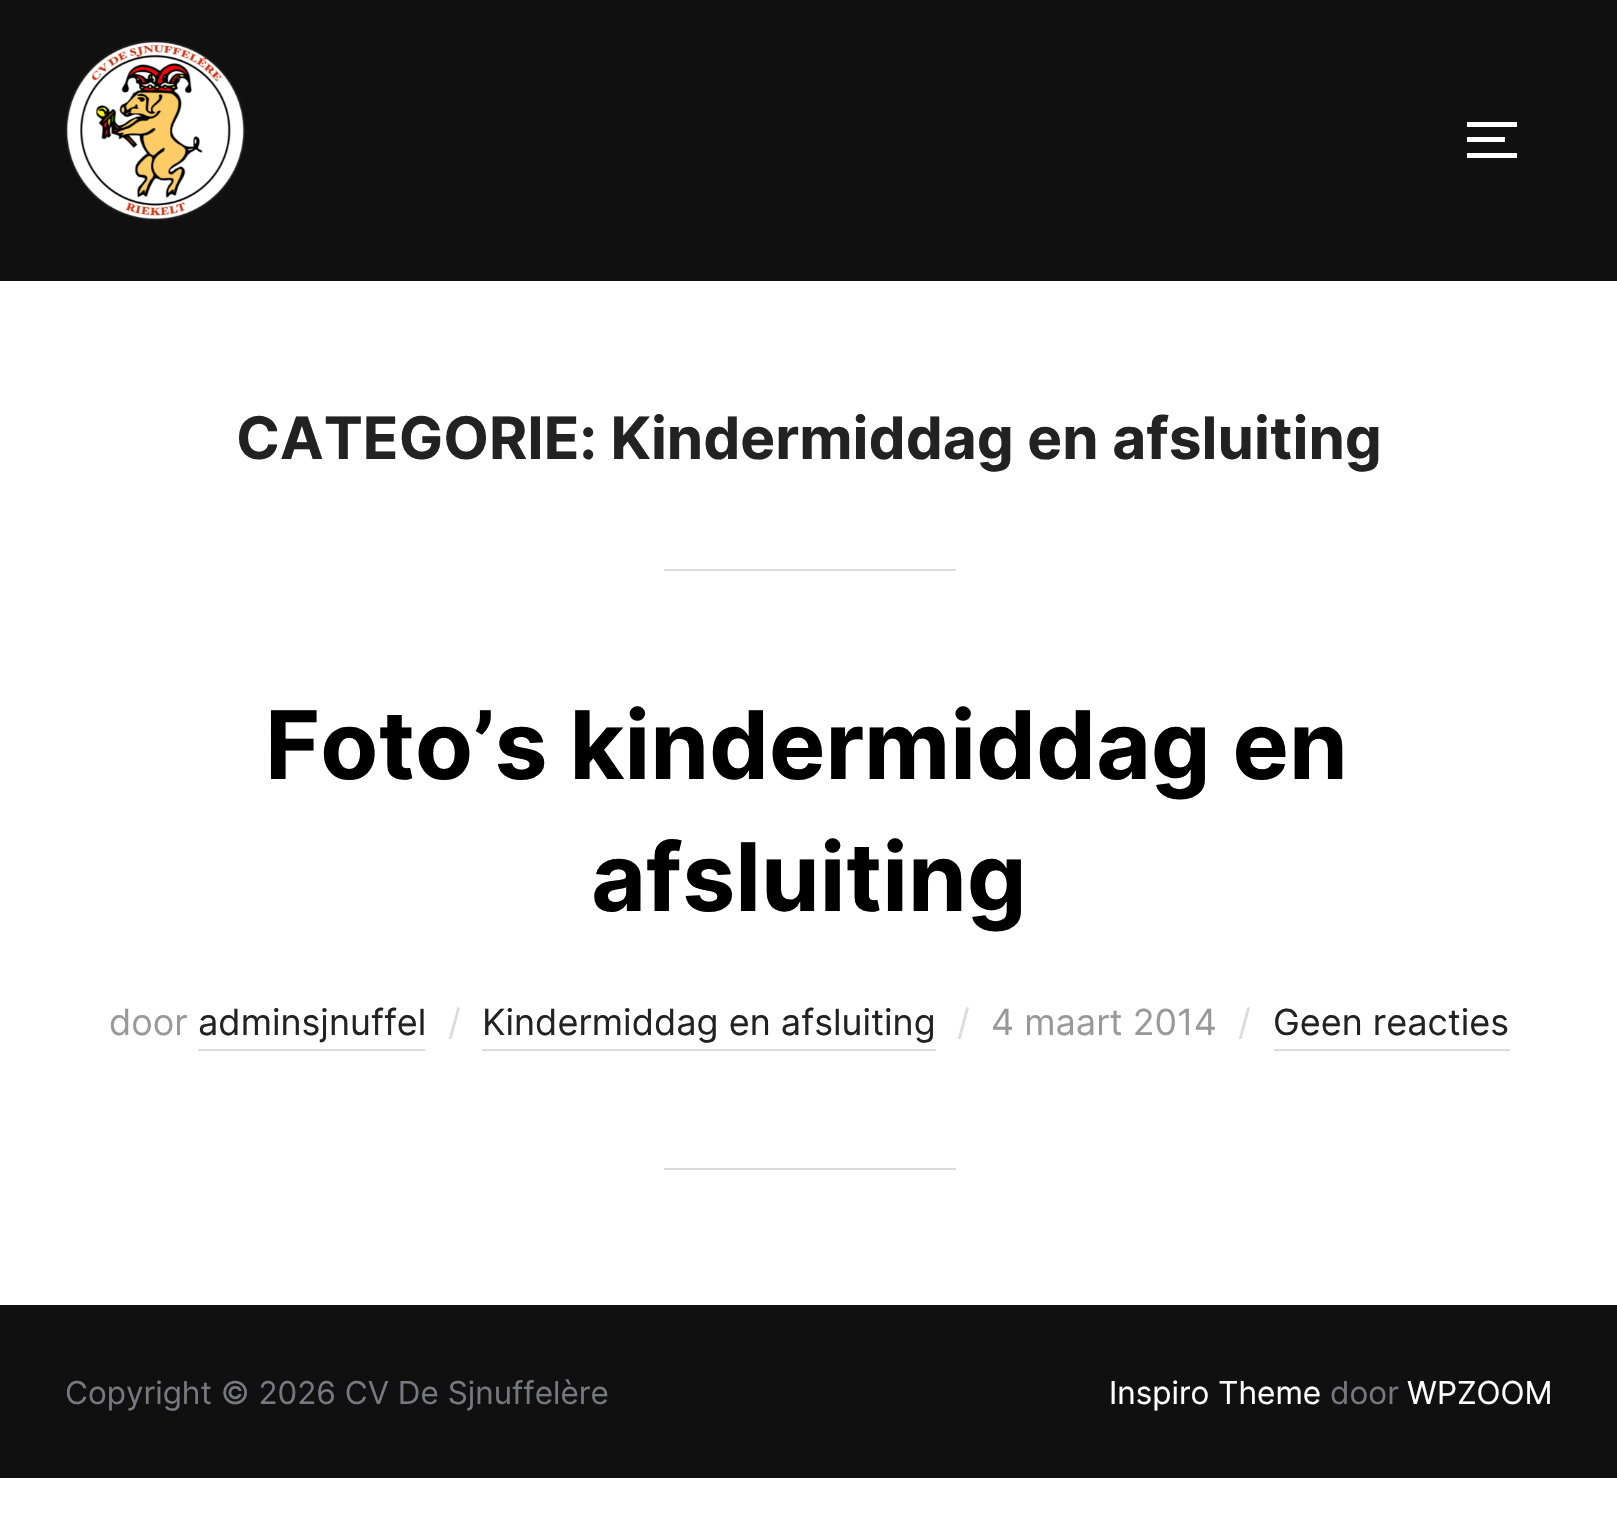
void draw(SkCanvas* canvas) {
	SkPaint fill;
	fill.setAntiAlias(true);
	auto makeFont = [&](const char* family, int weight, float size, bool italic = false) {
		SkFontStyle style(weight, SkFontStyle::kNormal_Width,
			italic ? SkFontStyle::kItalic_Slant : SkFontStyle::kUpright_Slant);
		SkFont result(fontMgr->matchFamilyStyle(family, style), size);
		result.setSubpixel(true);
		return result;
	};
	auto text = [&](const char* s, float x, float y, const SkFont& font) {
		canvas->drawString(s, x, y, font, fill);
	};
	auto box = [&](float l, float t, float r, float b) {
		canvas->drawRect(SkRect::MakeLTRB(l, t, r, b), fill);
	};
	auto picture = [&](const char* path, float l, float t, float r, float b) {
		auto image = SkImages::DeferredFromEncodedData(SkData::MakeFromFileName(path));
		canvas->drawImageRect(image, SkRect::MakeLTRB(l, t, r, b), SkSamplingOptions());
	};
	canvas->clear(0xFFFFFFFF);
	fill.setColor(0xFF101010);
	box(0, 0, 1617, 281);
	picture("image0.png", 65, 40, 245, 221);
	fill.setColor(0xFFFFFFFF);
	box(1467, 122, 1517, 127);
	box(1467, 137, 1505, 142);
	box(1467, 153, 1517, 158);
	fill.setColor(0xFFDBDBDB);
	box(664, 569, 956, 571);
	box(198, 1049, 425, 1051);
	box(482, 1049, 936, 1051);
	box(1274, 1049, 1510, 1051);
	box(664, 1168, 956, 1170);
	fill.setColor(0xFF101010);
	box(0, 1305, 1617, 1478);
	auto font1 = makeFont("Inter", 700, 58.5f);
	fill.setColor(0xFF222222);
	text("CATEGORIE: Kindermiddag en afsluiting", 236, 459, font1);
	auto font2 = makeFont("Inter", 700, 94.5f);
	fill.setColor(0xFF000000);
	text("Foto’s kindermiddag en", 265, 779, font2);
	text("afsluiting", 591, 911, font2);
	auto font3 = makeFont("Inter", 400, 36);
	fill.setColor(0xFF999999);
	text("door", 109, 1035, font3);
	fill.setColor(0xFF222222);
	text("adminsjnuffel", 198, 1035, font3);
	fill.setColor(0xFFDBDDDD);
	text("/", 448, 1035, font3);
	fill.setColor(0xFF222222);
	text("Kindermiddag en afsluiting", 482, 1035, font3);
	fill.setColor(0xFFDBDDDD);
	text("/", 957, 1035, font3);
	fill.setColor(0xFF999999);
	text("4 maart 2014", 991, 1035, font3);
	fill.setColor(0xFFDBDDDD);
	text("/", 1238, 1035, font3);
	fill.setColor(0xFF222222);
	text("Geen reacties", 1273, 1035, font3);
	auto font4 = makeFont("Inter", 400, 31.5f);
	fill.setColor(0xFF78787F);
	text("Copyright © 2026 CV De Sjnuffelère", 65, 1404, font4);
	fill.setColor(0xFFFFFFFF);
	text("Inspiro Theme", 1109, 1404, font4);
	fill.setColor(0xFF78787F);
	text("door", 1330, 1404, font4);
	fill.setColor(0xFFFFFFFF);
	text("WPZOOM", 1407, 1404, font4);
}
